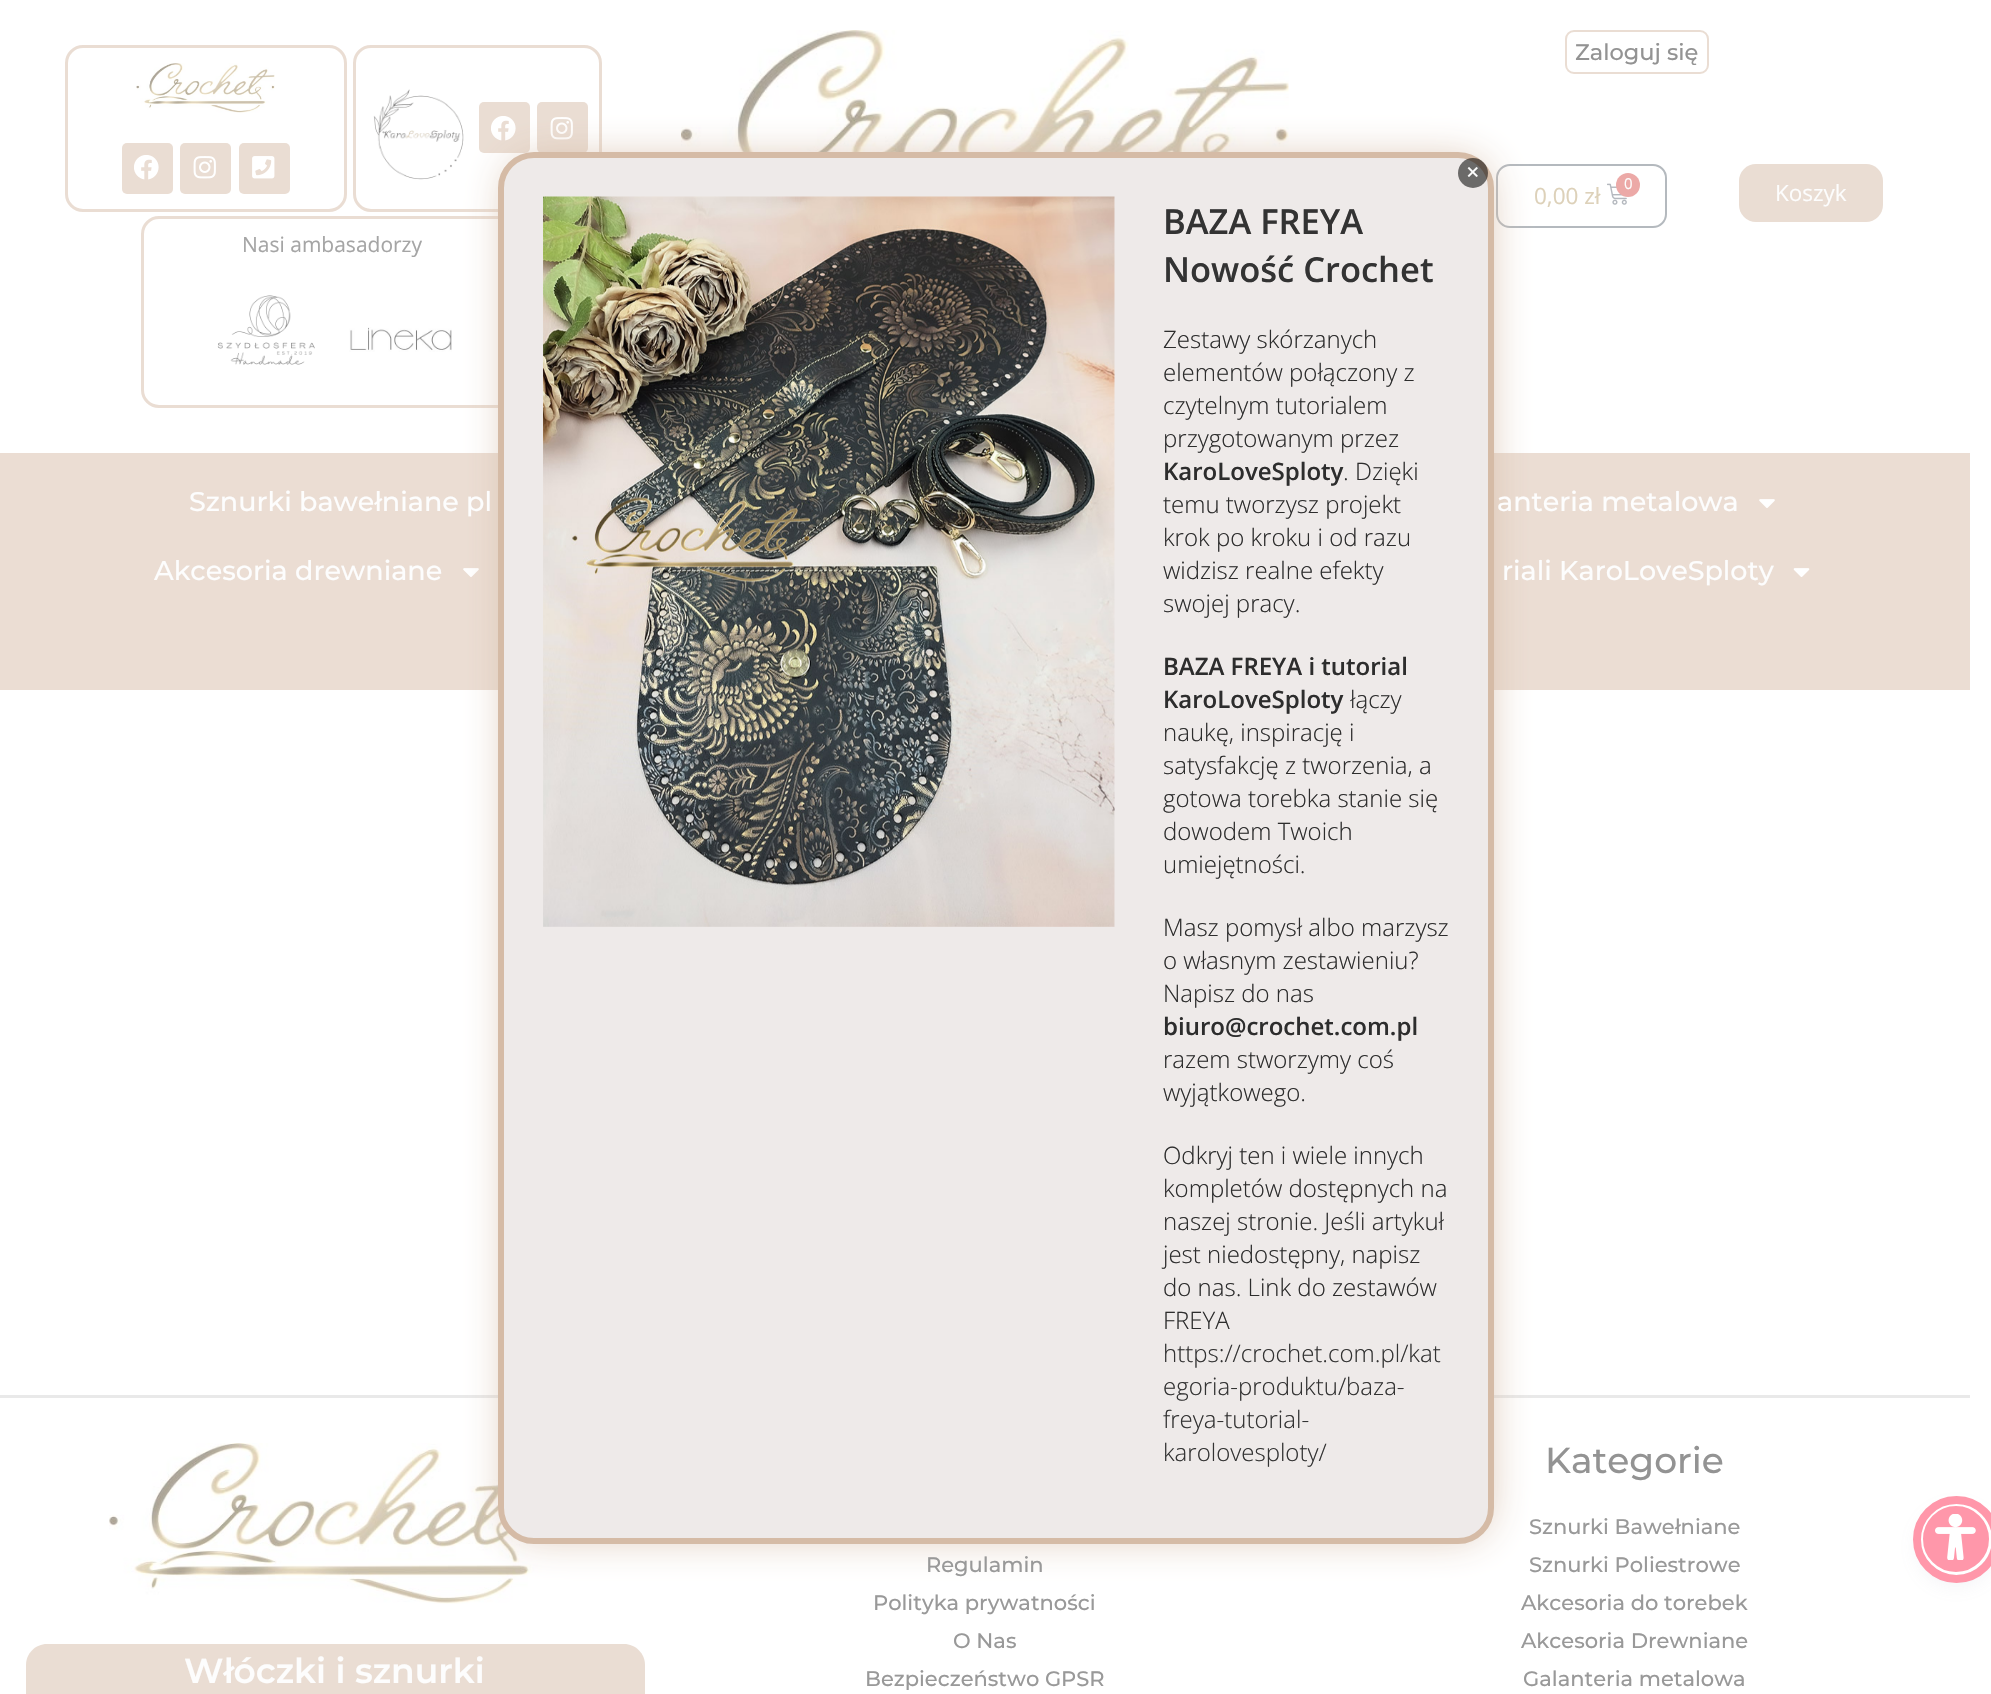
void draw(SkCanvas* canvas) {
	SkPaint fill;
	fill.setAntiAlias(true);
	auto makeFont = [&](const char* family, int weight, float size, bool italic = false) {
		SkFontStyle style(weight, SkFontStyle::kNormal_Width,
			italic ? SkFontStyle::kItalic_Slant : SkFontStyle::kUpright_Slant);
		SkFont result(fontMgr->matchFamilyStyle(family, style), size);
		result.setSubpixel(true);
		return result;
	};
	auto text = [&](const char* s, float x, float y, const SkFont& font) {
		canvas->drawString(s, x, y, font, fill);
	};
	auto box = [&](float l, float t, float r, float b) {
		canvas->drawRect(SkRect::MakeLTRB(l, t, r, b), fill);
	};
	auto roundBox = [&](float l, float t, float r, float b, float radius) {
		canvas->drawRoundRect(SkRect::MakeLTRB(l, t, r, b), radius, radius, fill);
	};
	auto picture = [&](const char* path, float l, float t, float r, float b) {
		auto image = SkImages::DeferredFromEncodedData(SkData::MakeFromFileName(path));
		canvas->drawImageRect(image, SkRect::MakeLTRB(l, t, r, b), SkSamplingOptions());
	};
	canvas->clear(0xFFFFFFFF);
	picture("image0.png", 681, 30, 1289, 152);
	fill.setStyle(SkPaint::kStroke_Style);
	fill.setStrokeWidth(2);
	fill.setColor(0xFFEADDD3);
	canvas->drawRoundRect(SkRect::MakeLTRB(1566, 31, 1708, 73), 8, 8, fill);
	fill.setColor(0xFFB4B9BE);
	canvas->drawRoundRect(SkRect::MakeLTRB(1497, 165, 1666, 227), 13, 13, fill);
	picture("image1.png", 1607, 183, 1627, 205);
	fill.setStyle(SkPaint::kFill_Style);
	fill.setColor(0xFFECA9A7);
	canvas->drawCircle(1628, 185, 12, fill);
	fill.setColor(0xFFEADDD3);
	roundBox(1739, 164, 1883, 222, 17);
	fill.setStyle(SkPaint::kStroke_Style);
	fill.setStrokeWidth(3);
	canvas->drawRoundRect(SkRect::MakeLTRB(66.5f, 46.5f, 345.5f, 210.5f), 16.5f, 16.5f, fill);
	picture("image2.png", 136, 63, 275, 113);
	fill.setStyle(SkPaint::kFill_Style);
	roundBox(122, 143, 173, 194, 5);
	picture("image3.png", 134, 155, 159, 180);
	roundBox(180, 143, 231, 194, 5);
	picture("image4.png", 193, 156, 216, 179);
	roundBox(239, 143, 290, 194, 5);
	picture("image5.png", 252, 156, 275, 179);
	fill.setStyle(SkPaint::kStroke_Style);
	canvas->drawRoundRect(SkRect::MakeLTRB(354.5f, 46.5f, 600.5f, 210.5f), 16.5f, 16.5f, fill);
	picture("image6.png", 373, 89, 464, 180);
	fill.setStyle(SkPaint::kFill_Style);
	roundBox(479, 102, 530, 153, 5);
	picture("image3.png", 491, 116, 516, 141);
	roundBox(537, 102, 588, 153, 5);
	picture("image4.png", 550, 117, 573, 140);
	fill.setStyle(SkPaint::kStroke_Style);
	canvas->drawRoundRect(SkRect::MakeLTRB(142.5f, 217.5f, 522.5f, 406.5f), 16.5f, 16.5f, fill);
	picture("image7.png", 217, 295, 315, 365);
	picture("image8.png", 349, 327, 452, 352);
	fill.setStyle(SkPaint::kFill_Style);
	fill.setColor(0xFFEBDDD3);
	box(0, 453, 1970, 690);
	picture("image9.png", 1759, 499, 1775, 508);
	picture("image9.png", 463, 568, 479, 577);
	picture("image10.png", 1793, 568, 1810, 577);
	fill.setColor(0xFFE9E9E9);
	box(0, 1395, 1970, 1398);
	picture("image11.png", 109, 1443, 560, 1604);
	fill.setColor(0xFFEADDD3);
	canvas->drawPath(SkPathBuilder().moveTo(47, 1644).lineTo(624, 1644).cubicTo(635.5f, 1644, 645, 1653.5f, 645, 1665).lineTo(645, 1692).lineTo(26, 1692).lineTo(26, 1665).cubicTo(26, 1653.5f, 35.5f, 1644, 47, 1644).close().detach(), fill);
	box(26, 1692, 645, 1694);
	fill.setColor(0xF0D5BBA6);
	fill.setMaskFilter(SkMaskFilter::MakeBlur(kNormal_SkBlurStyle, 22));
	canvas->drawRoundRect(SkRect::MakeLTRB(509, 161, 1487, 1535), 27, 27, fill);
	fill.setMaskFilter(nullptr);
	fill.setColor(0xFFEEEAE9);
	canvas->drawRoundRect(SkRect::MakeLTRB(501, 155, 1491, 1541), 33, 33, fill);
	fill.setStyle(SkPaint::kStroke_Style);
	fill.setStrokeWidth(6);
	fill.setColor(0xFFD5BBA6);
	canvas->drawRoundRect(SkRect::MakeLTRB(501, 155, 1491, 1541), 33, 33, fill);
	fill.setStyle(SkPaint::kFill_Style);
	fill.setColor(0x8C000000);
	canvas->drawCircle(1473, 173, 15, fill);
	picture("image12.png", 543, 196, 1115, 927);
	fill.setColor(0x33AEB2CA);
	fill.setMaskFilter(SkMaskFilter::MakeBlur(kNormal_SkBlurStyle, 3));
	canvas->drawRoundRect(SkRect::MakeLTRB(1920, 1506, 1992, 1578), 36, 36, fill);
	fill.setMaskFilter(nullptr);
	fill.setColor(0x269296B0);
	fill.setMaskFilter(SkMaskFilter::MakeBlur(kNormal_SkBlurStyle, 11));
	canvas->drawRoundRect(SkRect::MakeLTRB(1920, 1511, 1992, 1583), 36, 36, fill);
	fill.setMaskFilter(nullptr);
	fill.setColor(0xFFFF97AA);
	canvas->drawCircle(1956, 1539, 34.5f, fill);
	fill.setStyle(SkPaint::kStroke_Style);
	fill.setStrokeWidth(3);
	fill.setColor(0xFFFFFFFF);
	canvas->drawCircle(1956, 1539, 34.5f, fill);
	fill.setStrokeWidth(8);
	fill.setColor(0xFFFF97AA);
	canvas->drawCircle(1956.5f, 1539.5f, 39.5f, fill);
	picture("image13.png", 1935, 1514, 1976, 1560);
	auto font1 = makeFont("Montserrat", 500, 22.5f);
	fill.setStyle(SkPaint::kFill_Style);
	fill.setColor(0xFF939393);
	text("Zaloguj się", 1575, 60, font1);
	auto font2 = makeFont("Open Sans", 400, 15);
	fill.setColor(0xFFFDFDFD);
	text("0", 1624, 189, font2);
	auto font3 = makeFont("Open Sans", 400, 22.5f);
	fill.setColor(0xFFDDD1B9);
	text("0,00 zł", 1534, 204, font3);
	fill.setColor(0xFFFDFDFD);
	text("Koszyk", 1775, 201, font3);
	auto font4 = makeFont("Open Sans", 400, 21);
	fill.setColor(0xFFA5A5A5);
	text("Nasi ambasadorzy", 242, 252, font4);
	auto font5 = makeFont("Montserrat", 500, 27);
	fill.setColor(0xFFFDFDFD);
	text("Sznurki bawełniane pl", 189, 511, font5);
	text("anteria metalowa", 1497, 511, font5);
	text("Akcesoria drewniane", 154, 580, font5);
	text("riali KaroLoveSploty", 1502, 580, font5);
	auto font6 = makeFont("Montserrat", 600, 34.5f);
	text("Włóczki i sznurki", 184, 1683, font6);
	auto font7 = makeFont("Montserrat", 500, 21);
	fill.setColor(0xFF999999);
	text("Regulamin", 926, 1572, font7);
	text("Polityka prywatności", 873, 1610, font7);
	text("O Nas", 953, 1648, font7);
	text("Bezpieczeństwo GPSR", 865, 1686, font7);
	auto font8 = makeFont("Montserrat", 500, 36);
	fill.setColor(0xFF939393);
	text("Kategorie", 1545, 1473, font8);
	fill.setColor(0xFF999999);
	text("Sznurki Bawełniane", 1529, 1534, font7);
	text("Sznurki Poliestrowe", 1529, 1572, font7);
	text("Akcesoria do torebek", 1521, 1610, font7);
	text("Akcesoria Drewniane", 1521, 1648, font7);
	text("Galanteria metalowa", 1523, 1686, font7);
	auto font9 = makeFont("Liberation Serif", 700, 24);
	fill.setColor(0xFFFDFDFD);
	text("×", 1466, 180, font9);
	auto font10 = makeFont("Open Sans", 600, 34.5f);
	fill.setColor(0xFF333333);
	text("BAZA FREYA", 1163, 234, font10);
	text("Nowość Crochet", 1163, 282, font10);
	auto font11 = makeFont("Open Sans", 300, 24);
	fill.setColor(0xFF2D2D2D);
	text("Zestawy skórzanych", 1163, 348, font11);
	text("elementów połączony z", 1163, 381, font11);
	text("czytelnym tutorialem", 1163, 414, font11);
	text("przygotowanym przez", 1163, 447, font11);
	auto font12 = makeFont("Open Sans", 600, 24);
	text("KaroLoveSploty", 1163, 480, font12);
	text(". Dzięki", 1343, 480, font11);
	text("temu tworzysz projekt", 1163, 513, font11);
	text("krok po kroku i od razu", 1163, 546, font11);
	text("widzisz realne efekty", 1163, 579, font11);
	text("swojej pracy.", 1163, 612, font11);
	text("BAZA FREYA i tutorial", 1163, 675, font12);
	text("KaroLoveSploty", 1163, 708, font12);
	text("łączy", 1350, 708, font11);
	text("naukę, inspirację i", 1163, 741, font11);
	text("satysfakcję z tworzenia, a", 1163, 774, font11);
	text("gotowa torebka stanie się", 1163, 807, font11);
	text("dowodem Twoich", 1163, 840, font11);
	text("umiejętności.", 1163, 873, font11);
	text("Masz pomysł albo marzysz", 1163, 936, font11);
	text("o własnym zestawieniu?", 1163, 969, font11);
	text("Napisz do nas", 1163, 1002, font11);
	text("biuro@crochet.com.pl", 1163, 1035, font12);
	text("razem stworzymy coś", 1163, 1068, font11);
	text("wyjątkowego.", 1163, 1101, font11);
	text("Odkryj ten i wiele innych", 1163, 1164, font11);
	text("kompletów dostępnych na", 1163, 1197, font11);
	text("naszej stronie. Jeśli artykuł", 1163, 1230, font11);
	text("jest niedostępny, napisz", 1163, 1263, font11);
	text("do nas. Link do zestawów", 1163, 1296, font11);
	text("FREYA", 1163, 1329, font11);
	fill.setColor(0xFF333333);
	text("https://crochet.com.pl/kat", 1163, 1362, font11);
	text("egoria-produktu/baza-", 1163, 1395, font11);
	text("freya-tutorial-", 1163, 1428, font11);
	text("karolovesploty/", 1163, 1461, font11);
}
